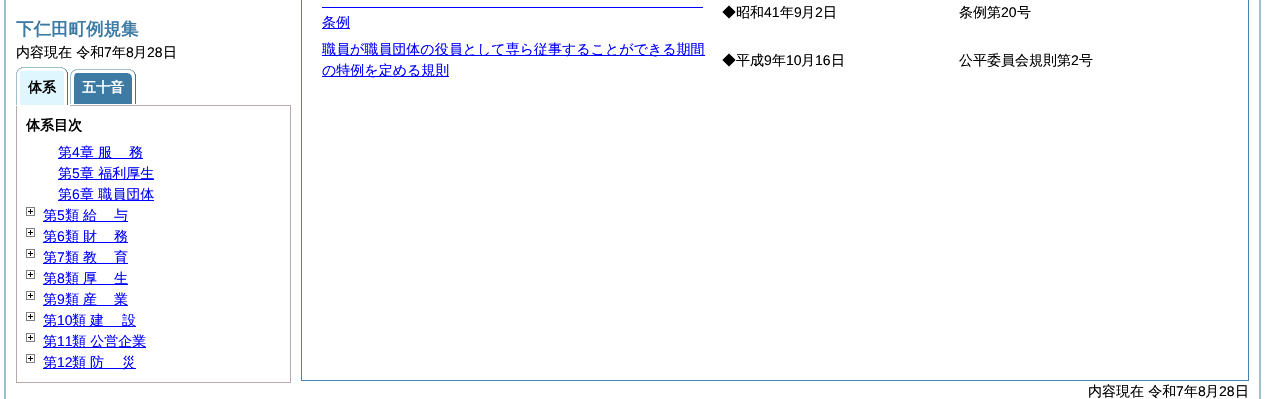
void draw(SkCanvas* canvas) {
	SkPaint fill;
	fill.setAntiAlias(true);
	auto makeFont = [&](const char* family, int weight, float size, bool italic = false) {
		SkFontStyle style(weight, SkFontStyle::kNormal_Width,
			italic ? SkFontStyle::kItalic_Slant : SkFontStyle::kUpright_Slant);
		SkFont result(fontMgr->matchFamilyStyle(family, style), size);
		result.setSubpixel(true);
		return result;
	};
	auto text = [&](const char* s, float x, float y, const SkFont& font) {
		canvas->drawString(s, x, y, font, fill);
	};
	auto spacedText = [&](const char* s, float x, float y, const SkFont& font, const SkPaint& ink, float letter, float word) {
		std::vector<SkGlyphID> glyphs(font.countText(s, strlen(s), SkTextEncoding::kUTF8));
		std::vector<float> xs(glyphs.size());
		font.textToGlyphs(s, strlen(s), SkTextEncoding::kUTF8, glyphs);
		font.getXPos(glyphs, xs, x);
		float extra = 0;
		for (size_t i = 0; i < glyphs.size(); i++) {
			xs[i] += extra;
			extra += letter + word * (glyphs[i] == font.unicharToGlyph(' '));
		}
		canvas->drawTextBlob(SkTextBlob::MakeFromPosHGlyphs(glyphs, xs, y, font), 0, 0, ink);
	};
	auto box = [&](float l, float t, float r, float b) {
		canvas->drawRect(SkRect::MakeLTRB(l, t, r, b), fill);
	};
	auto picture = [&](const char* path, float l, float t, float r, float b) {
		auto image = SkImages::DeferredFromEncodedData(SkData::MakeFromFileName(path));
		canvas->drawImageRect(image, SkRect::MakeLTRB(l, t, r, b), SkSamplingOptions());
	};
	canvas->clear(0xFFFFFFFF);
	fill.setStyle(SkPaint::kStroke_Style);
	fill.setStrokeWidth(2);
	fill.setColor(0xFFA0BFCC);
	canvas->drawRect(SkRect::MakeLTRB(5, -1, 1260, 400), fill);
	fill.setStrokeWidth(1);
	fill.setColor(0xFFB5ABA9);
	canvas->drawRect(SkRect::MakeLTRB(16.5f, 105.5f, 290.5f, 382.5f), fill);
	fill.setStyle(SkPaint::kFill_Style);
	fill.setColor(0xFFFFFFFF);
	box(16, 105, 70, 106);
	picture("image0.png", 16, 67, 22, 105);
	picture("image1.png", 22, 67, 68, 105);
	picture("image2.png", 70, 67, 76, 104);
	picture("image3.png", 76, 67, 136, 104);
	fill.setColor(0xFF0000FF);
	box(58, 158, 143, 159);
	box(58, 179, 154, 180);
	box(58, 200, 154, 201);
	picture("image4.png", 26, 207, 35, 216);
	box(43, 221, 128, 222);
	picture("image4.png", 26, 228, 35, 237);
	box(43, 242, 128, 243);
	picture("image4.png", 26, 249, 35, 258);
	box(43, 263, 128, 264);
	picture("image4.png", 26, 270, 35, 279);
	box(43, 284, 128, 285);
	picture("image4.png", 26, 291, 35, 300);
	box(43, 305, 128, 306);
	picture("image4.png", 26, 312, 35, 321);
	box(43, 326, 136, 327);
	picture("image4.png", 26, 333, 35, 342);
	box(43, 347, 146, 348);
	picture("image4.png", 26, 354, 35, 363);
	box(43, 368, 136, 369);
	fill.setStyle(SkPaint::kStroke_Style);
	fill.setColor(0xFF4682B4);
	canvas->drawRect(SkRect::MakeLTRB(301.5f, -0.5f, 1248.5f, 380.5f), fill);
	fill.setStyle(SkPaint::kFill_Style);
	fill.setColor(0xFF0000FF);
	box(322, 7, 703, 8);
	box(322, 28, 350, 29);
	box(322, 55, 705, 56);
	box(322, 76, 449, 77);
	auto font1 = makeFont("WenQuanYi Zen Hei", 700, 17.5f);
	fill.setColor(0xFF3D7AA4);
	text("下仁田町例規集", 16, 35, font1);
	auto font2 = makeFont("WenQuanYi Zen Hei", 500, 14);
	fill.setColor(0xFF000000);
	text("内容現在 令和", 16, 57, font2);
	auto font3 = makeFont("Liberation Sans", 400, 14);
	text("7", 104, 57, font3);
	text("年", 112, 57, font2);
	text("8", 126, 57, font3);
	text("月", 133, 57, font2);
	text("28", 147, 57, font3);
	text("日", 163, 57, font2);
	auto font4 = makeFont("WenQuanYi Zen Hei", 700, 14);
	text("体系", 28, 92, font4);
	fill.setColor(0xFFFFFFFF);
	text("五十音", 82, 92, font4);
	fill.setColor(0xFF000000);
	text("体系目次", 26, 130, font4);
	fill.setColor(0xFF0000FF);
	text("第", 58, 157, font2);
	text("4", 72, 157, font3);
	text("章", 80, 157, font2);
	spacedText("服", 98, 157, font2, fill, 18, 0);
	text("務", 129, 157, font2);
	text("第", 58, 178, font2);
	text("5", 72, 178, font3);
	text("章 福利厚生", 80, 178, font2);
	text("第", 58, 199, font2);
	text("6", 72, 199, font3);
	text("章 職員団体", 80, 199, font2);
	text("第", 43, 220, font2);
	text("5", 57, 220, font3);
	text("類", 65, 220, font2);
	spacedText("給", 83, 220, font2, fill, 18, 0);
	text("与", 114, 220, font2);
	text("第", 43, 241, font2);
	text("6", 57, 241, font3);
	text("類", 65, 241, font2);
	spacedText("財", 83, 241, font2, fill, 18, 0);
	text("務", 114, 241, font2);
	text("第", 43, 262, font2);
	text("7", 57, 262, font3);
	text("類", 65, 262, font2);
	spacedText("教", 83, 262, font2, fill, 18, 0);
	text("育", 114, 262, font2);
	text("第", 43, 283, font2);
	text("8", 57, 283, font3);
	text("類", 65, 283, font2);
	spacedText("厚", 83, 283, font2, fill, 18, 0);
	text("生", 114, 283, font2);
	text("第", 43, 304, font2);
	text("9", 57, 304, font3);
	text("類", 65, 304, font2);
	spacedText("産", 83, 304, font2, fill, 18, 0);
	text("業", 114, 304, font2);
	text("第", 43, 325, font2);
	text("10", 57, 325, font3);
	text("類", 72, 325, font2);
	spacedText("建", 90, 325, font2, fill, 18, 0);
	text("設", 122, 325, font2);
	text("第", 43, 346, font2);
	text("11", 57, 346, font3);
	text("類 公営企業", 72, 346, font2);
	text("第", 43, 367, font2);
	text("12", 57, 367, font3);
	text("類", 72, 367, font2);
	spacedText("防", 90, 367, font2, fill, 18, 0);
	text("災", 122, 367, font2);
	fill.setColor(0xFF000000);
	text("◆昭和", 722, 17, font2);
	text("41", 764, 17, font3);
	text("年", 780, 17, font2);
	text("9", 794, 17, font3);
	text("月", 801, 17, font2);
	text("2", 815, 17, font3);
	text("日", 823, 17, font2);
	text("条例第", 959, 17, font2);
	text("20", 1001, 17, font3);
	text("号", 1017, 17, font2);
	fill.setColor(0xFF0000FF);
	text("条例", 322, 27, font2);
	text("職員が職員団体の役員として専ら従事することができる期間", 322, 54, font2);
	text("の特例を定める規則", 322, 75, font2);
	fill.setColor(0xFF000000);
	text("◆平成", 722, 65, font2);
	text("9", 764, 65, font3);
	text("年", 772, 65, font2);
	text("10", 786, 65, font3);
	text("月", 801, 65, font2);
	text("16", 815, 65, font3);
	text("日", 831, 65, font2);
	text("公平委員会規則第", 959, 65, font2);
	text("2", 1071, 65, font3);
	text("号", 1079, 65, font2);
	text("内容現在 令和", 1088, 396, font2);
	text("7", 1176, 396, font3);
	text("年", 1184, 396, font2);
	text("8", 1198, 396, font3);
	text("月", 1205, 396, font2);
	text("28", 1219, 396, font3);
	text("日", 1235, 396, font2);
}
